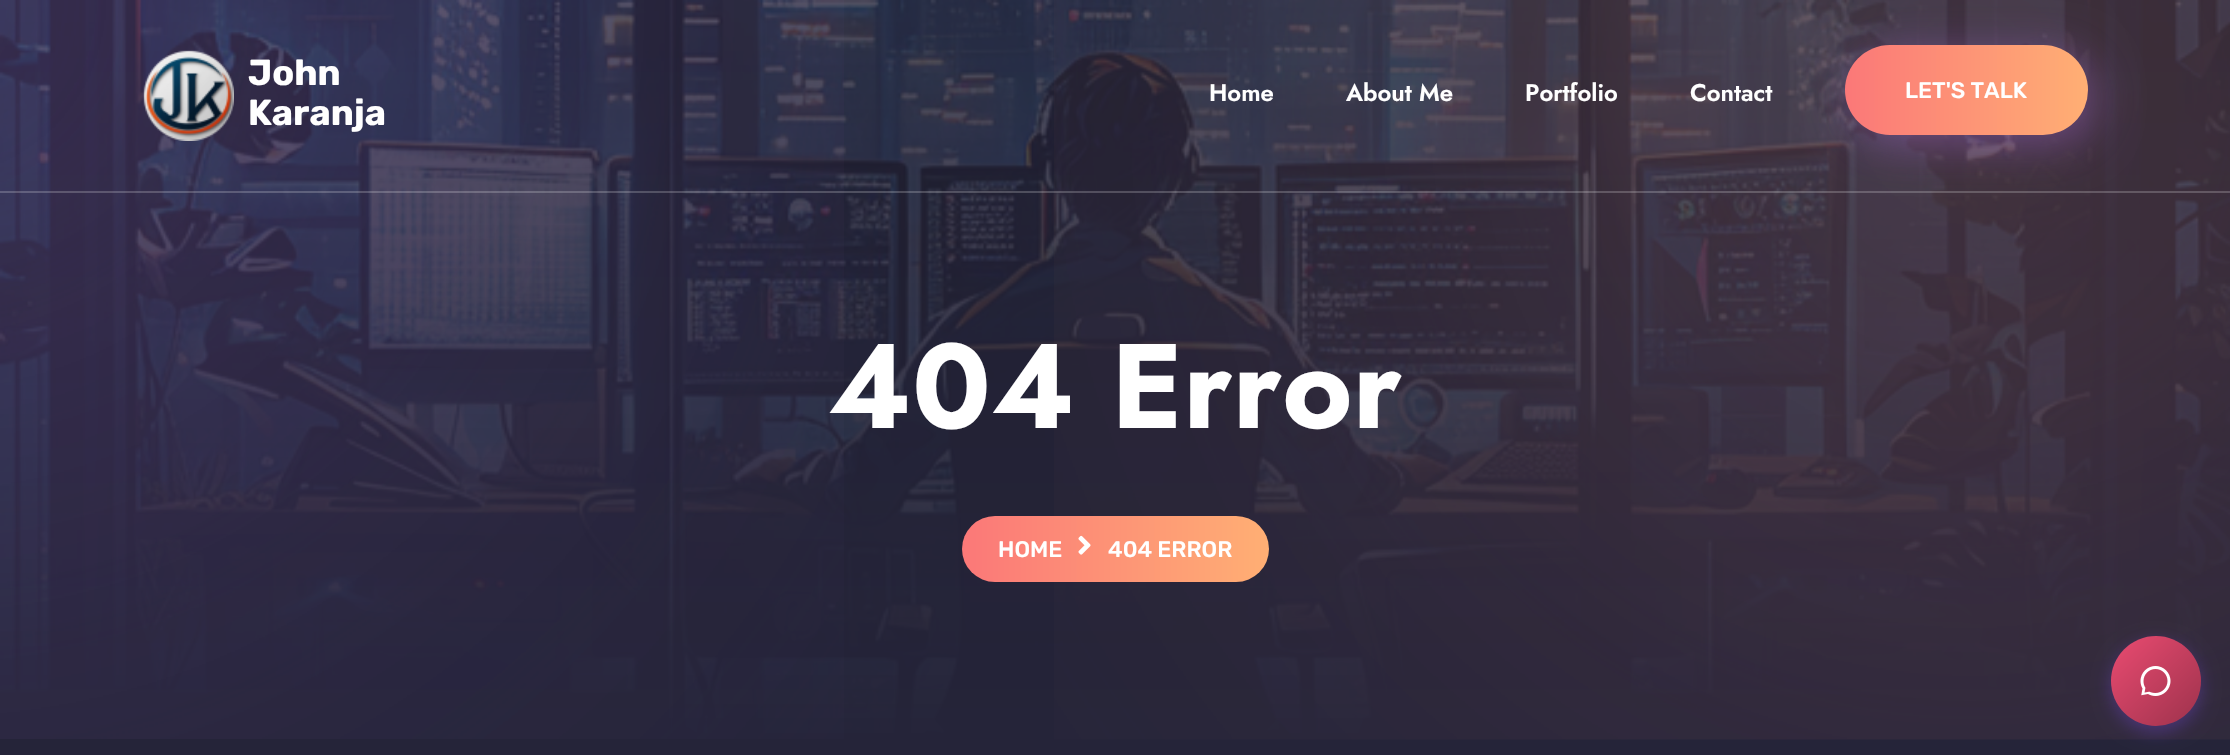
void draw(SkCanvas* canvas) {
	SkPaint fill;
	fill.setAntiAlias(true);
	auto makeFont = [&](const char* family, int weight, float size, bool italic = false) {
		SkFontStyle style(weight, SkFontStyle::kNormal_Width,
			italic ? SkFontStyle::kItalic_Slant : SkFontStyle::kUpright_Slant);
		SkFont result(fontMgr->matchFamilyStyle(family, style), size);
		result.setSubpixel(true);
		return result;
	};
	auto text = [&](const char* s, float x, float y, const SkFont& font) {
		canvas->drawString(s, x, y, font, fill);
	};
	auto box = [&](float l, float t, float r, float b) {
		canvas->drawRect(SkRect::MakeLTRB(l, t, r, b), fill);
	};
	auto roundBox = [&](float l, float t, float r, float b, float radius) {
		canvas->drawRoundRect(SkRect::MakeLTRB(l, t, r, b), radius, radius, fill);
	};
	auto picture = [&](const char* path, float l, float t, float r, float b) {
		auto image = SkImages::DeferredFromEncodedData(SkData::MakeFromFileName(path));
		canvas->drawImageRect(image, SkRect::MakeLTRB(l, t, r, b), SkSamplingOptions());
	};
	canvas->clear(0xFF252439);
	picture("image1.png", 0, 0, 2230, 740);
	picture("image2.png", 0, 0, 844, 739);
	picture("image3.png", 1054, 0, 2230, 740);
	fill.setColor(0x33FFFFFF);
	box(0, 191, 2230, 193);
	picture("image0.png", 143, 50, 234, 141);
	fill.setColor(0x59C378FB);
	fill.setMaskFilter(SkMaskFilter::MakeBlur(kNormal_SkBlurStyle, 22.5f));
	canvas->drawRoundRect(SkRect::MakeLTRB(1853, 53, 2096, 143), 45, 45, fill);
	fill.setMaskFilter(nullptr);
	{
		const SkColor colors[] = {0xFFFB7878, 0xFFFFAF74};
		const float stops[] = {0, 1};
		const SkPoint ends[] = {{1845, 90}, {2088, 90}};
		fill.setShader(SkGradientShader::MakeLinear(ends, colors, stops, 2, SkTileMode::kClamp));
		fill.setAlpha(255);
	}
	roundBox(1845, 45, 2088, 135, 45);
	{
		const SkColor colors[] = {0xFFFB7878, 0xFFFFAF74};
		const float stops[] = {0, 1};
		const SkPoint ends[] = {{962, 549}, {1269, 549}};
		fill.setShader(SkGradientShader::MakeLinear(ends, colors, stops, 2, SkTileMode::kClamp));
		fill.setAlpha(255);
	}
	roundBox(962, 516, 1269, 582, 33);
	picture("image4.png", 1078, 535, 1091, 555);
	fill.setShader(nullptr);
	fill.setColor(0x4D854FFF);
	fill.setMaskFilter(SkMaskFilter::MakeBlur(kNormal_SkBlurStyle, 9));
	canvas->drawRoundRect(SkRect::MakeLTRB(2111, 642, 2201, 732), 45, 45, fill);
	fill.setMaskFilter(nullptr);
	{
		const SkColor colors[] = {0xFFEA4B71, 0xFF9D324C};
		const float stops[] = {0, 1};
		const SkPoint ends[] = {{2111, 636}, {2201, 726}};
		fill.setShader(SkGradientShader::MakeLinear(ends, colors, stops, 2, SkTileMode::kClamp));
		fill.setAlpha(255);
	}
	canvas->drawCircle(2156, 681, 45, fill);
	picture("image5.png", 2140, 666, 2171, 696);
	auto font1 = makeFont("Rubik", 700, 36);
	fill.setShader(nullptr);
	fill.setColor(0xFFFFFFFF);
	text("John", 248, 85, font1);
	text("Karanja", 248, 125, font1);
	auto font2 = makeFont("Jost", 600, 24);
	text("Home", 1209, 101, font2);
	text("About Me", 1346, 101, font2);
	text("Portfolio", 1525, 101, font2);
	text("Contact", 1690, 101, font2);
	auto font3 = makeFont("Rubik", 500, 22.5f);
	text("LET'S TALK", 1905, 98, font3);
	auto font4 = makeFont("Jost", 700, 120);
	text("404 Error", 828, 428, font4);
	text("HOME", 998, 557, font3);
	text("404 ERROR", 1108, 557, font3);
}
